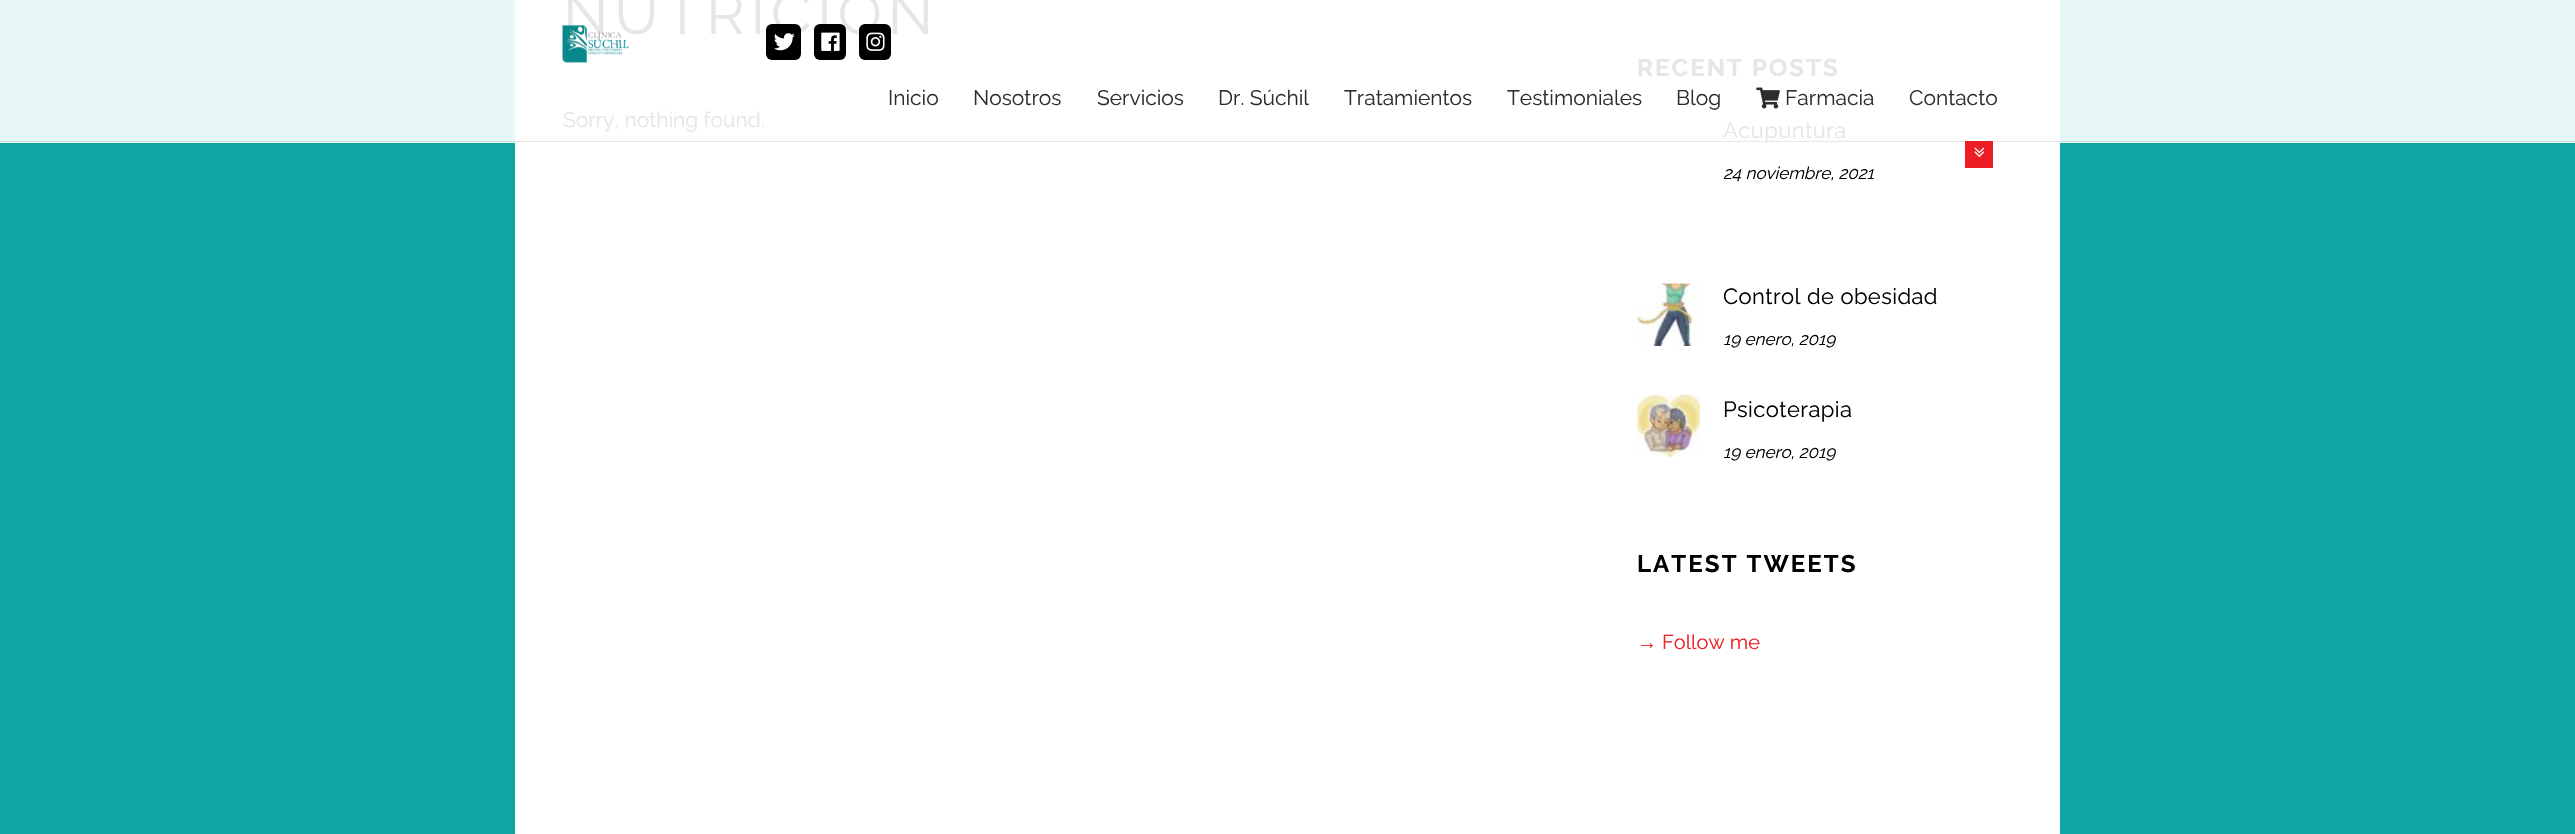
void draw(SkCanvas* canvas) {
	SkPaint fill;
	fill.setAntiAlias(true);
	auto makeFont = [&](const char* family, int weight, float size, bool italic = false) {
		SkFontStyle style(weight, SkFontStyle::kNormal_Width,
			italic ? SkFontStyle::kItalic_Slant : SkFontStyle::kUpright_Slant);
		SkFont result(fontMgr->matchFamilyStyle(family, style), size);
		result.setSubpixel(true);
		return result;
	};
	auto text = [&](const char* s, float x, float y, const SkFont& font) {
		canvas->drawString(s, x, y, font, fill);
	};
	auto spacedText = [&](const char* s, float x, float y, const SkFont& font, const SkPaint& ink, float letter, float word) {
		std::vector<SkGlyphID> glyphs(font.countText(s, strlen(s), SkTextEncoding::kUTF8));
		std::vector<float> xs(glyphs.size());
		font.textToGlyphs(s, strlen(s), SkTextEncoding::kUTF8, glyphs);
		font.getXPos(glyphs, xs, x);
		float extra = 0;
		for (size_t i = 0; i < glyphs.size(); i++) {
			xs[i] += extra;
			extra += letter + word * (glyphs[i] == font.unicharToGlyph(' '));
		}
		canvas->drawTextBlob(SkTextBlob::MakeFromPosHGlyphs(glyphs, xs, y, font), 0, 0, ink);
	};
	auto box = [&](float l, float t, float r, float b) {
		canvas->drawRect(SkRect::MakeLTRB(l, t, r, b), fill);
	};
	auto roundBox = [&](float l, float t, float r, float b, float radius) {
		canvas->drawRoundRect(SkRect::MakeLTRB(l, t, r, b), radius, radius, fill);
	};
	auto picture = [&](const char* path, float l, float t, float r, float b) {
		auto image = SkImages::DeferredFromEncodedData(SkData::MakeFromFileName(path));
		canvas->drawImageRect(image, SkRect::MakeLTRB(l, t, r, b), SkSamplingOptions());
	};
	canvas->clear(0xFF10A6A6);
	fill.setColor(0xFFE7F6F6);
	box(0, 0, 2575, 143);
	fill.setColor(0xFFFFFFFF);
	box(515, 0, 2060, 834);
	picture("image0.png", 1637, 283, 1698, 346);
	picture("image1.png", 1637, 394, 1700, 458);
	fill.setColor(0x1A000000);
	box(0, 141, 2575, 142);
	picture("image6.png", 1756, 87, 1780, 109);
	fill.setColor(0xFFEC1E24);
	box(1965, 141, 1993, 168);
	picture("image7.png", 1974, 147, 1985, 157);
	auto font1 = makeFont("Raleway", 400, 58.75f);
	fill.setColor(0xFFE6E6E6);
	spacedText("NUTRICIÓN", 563, 34, font1, fill, 5.9f, 0);
	auto font2 = makeFont("Raleway", 400, 21);
	text("Sorry, nothing found.", 563, 127, font2);
	auto font3 = makeFont("Raleway", 700, 24);
	spacedText("RECENT POSTS", 1637, 76, font3, fill, 2.1f, 0);
	auto font4 = makeFont("Raleway", 400, 22);
	spacedText("Acupuntura", 1723, 138, font4, fill, 0.4f, 0);
	auto font5 = makeFont("Raleway", 400, 17, true);
	fill.setColor(0xFF000000);
	text("24 noviembre, 2021", 1723, 179, font5);
	spacedText("Control de obesidad", 1723, 304, font4, fill, 0.4f, 0);
	text("19 enero, 2019", 1723, 345, font5);
	spacedText("Psicoterapia", 1723, 417, font4, fill, 0.4f, 0);
	text("19 enero, 2019", 1723, 458, font5);
	spacedText("LATEST TWEETS", 1637, 572, font3, fill, 2.1f, 0);
	auto font6 = makeFont("Liberation Sans", 400, 20);
	fill.setColor(0xFFED1E24);
	text("→", 1637, 649, font6);
	auto font7 = makeFont("Raleway", 400, 20);
	text("Follow me", 1662, 649, font7);
	picture("image2.png", 562, 25, 629, 63);
	fill.setColor(0xFF000000);
	roundBox(766, 24, 801, 60, 6);
	picture("image3.png", 774, 33, 795, 51);
	roundBox(814, 24, 846, 60, 6);
	picture("image4.png", 821, 32, 840, 51);
	roundBox(859, 24, 891, 60, 6);
	picture("image5.png", 866, 32, 885, 51);
	fill.setColor(0xFF2D2D2D);
	text("Inicio", 888, 105, font2);
	text("Nosotros", 973, 105, font2);
	text("Servicios", 1097, 105, font2);
	text("Dr. Súchil", 1218, 105, font2);
	text("Tratamientos", 1344, 105, font2);
	text("Testimoniales", 1507, 105, font2);
	text("Blog", 1676, 105, font2);
	text("Farmacia", 1785, 105, font2);
	text("Contacto", 1909, 105, font2);
}
